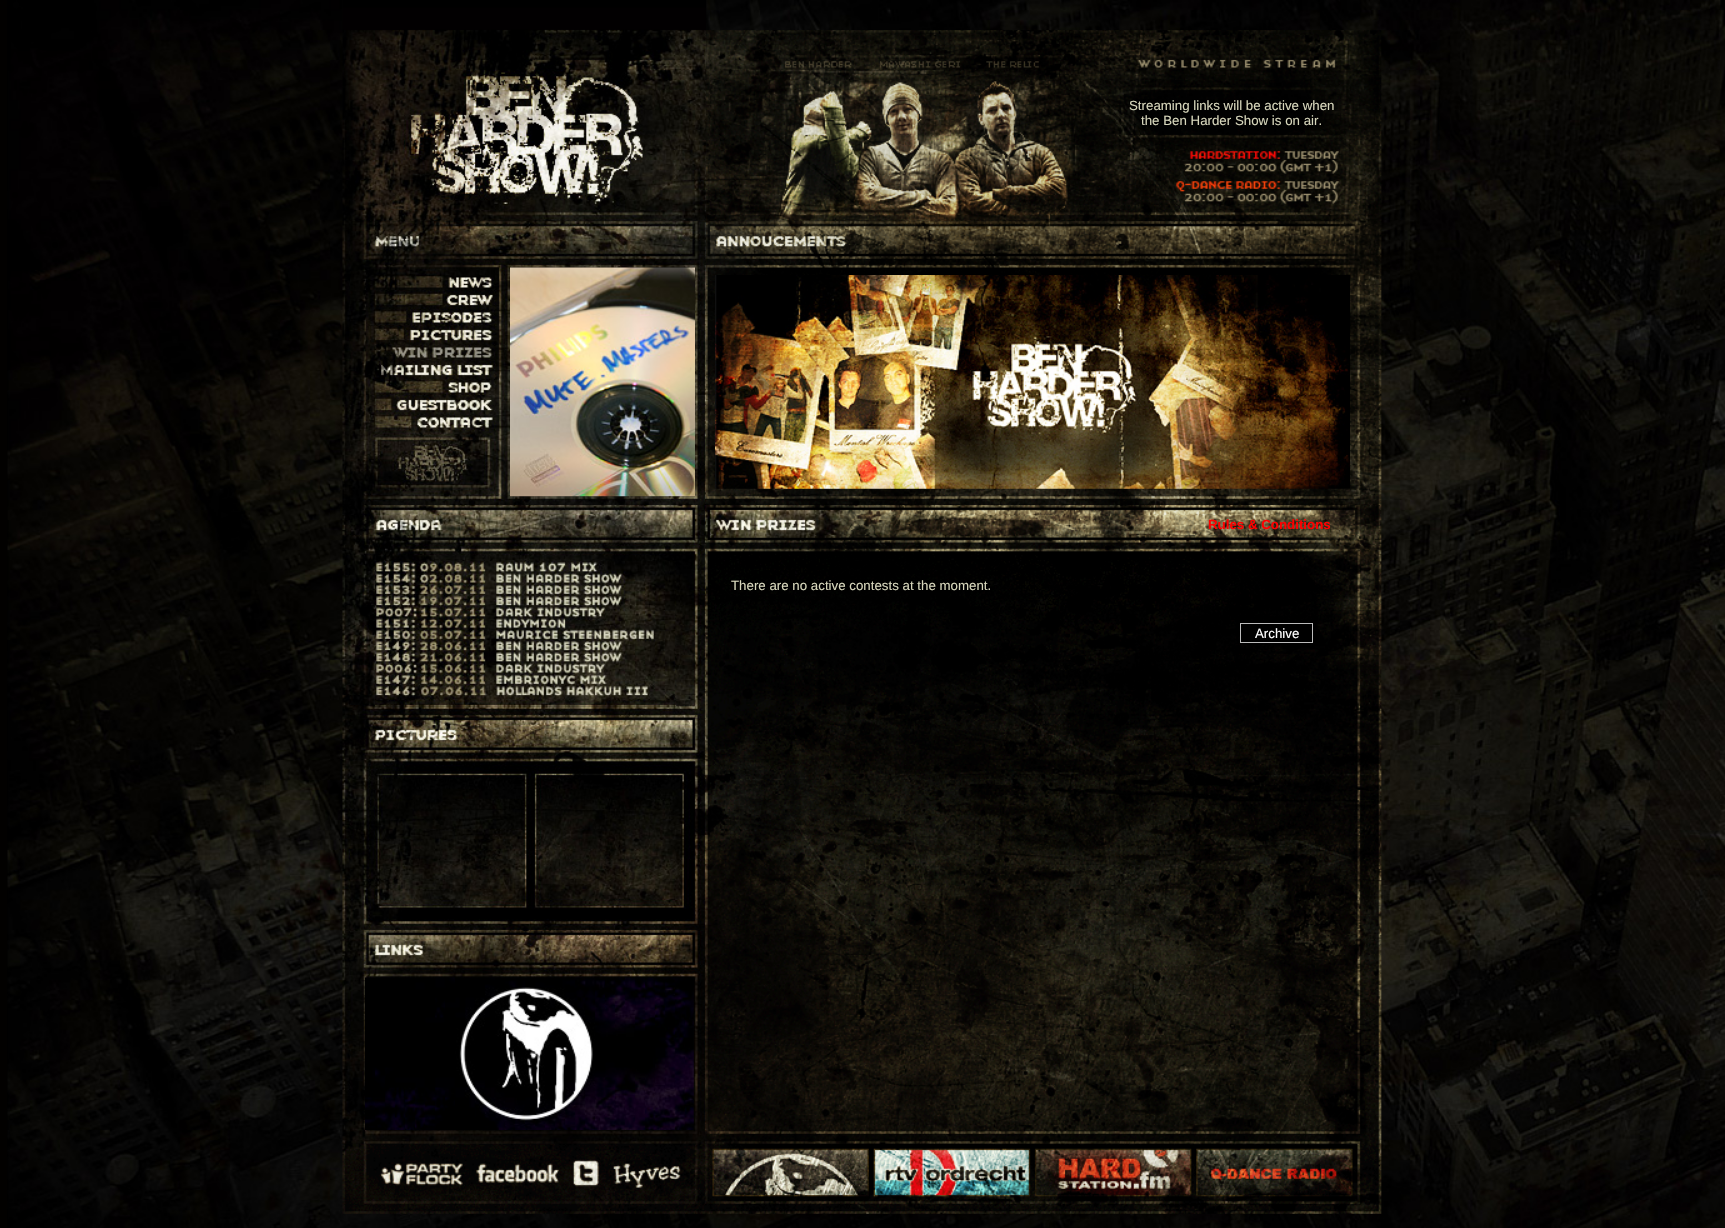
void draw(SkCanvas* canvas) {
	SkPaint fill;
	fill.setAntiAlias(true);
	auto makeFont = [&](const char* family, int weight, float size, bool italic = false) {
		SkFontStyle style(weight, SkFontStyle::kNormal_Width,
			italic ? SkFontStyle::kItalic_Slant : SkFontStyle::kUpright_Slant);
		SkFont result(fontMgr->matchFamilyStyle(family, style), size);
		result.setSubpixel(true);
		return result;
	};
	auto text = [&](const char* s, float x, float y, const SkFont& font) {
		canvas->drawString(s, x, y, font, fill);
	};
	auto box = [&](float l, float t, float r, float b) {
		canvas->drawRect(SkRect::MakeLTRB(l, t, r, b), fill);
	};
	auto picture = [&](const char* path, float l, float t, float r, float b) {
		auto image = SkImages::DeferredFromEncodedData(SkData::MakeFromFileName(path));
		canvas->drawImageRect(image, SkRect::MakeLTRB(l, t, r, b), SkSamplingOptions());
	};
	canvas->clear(0xFF020100);
	picture("image0.png", 7, 0, 1725, 1228);
	picture("image1.png", 342, 0, 707, 222);
	picture("image2.png", 706, 30, 1382, 222);
	picture("image3.png", 342, 221, 707, 505);
	picture("image4.png", 366, 267, 499, 290);
	picture("image5.png", 366, 290, 499, 308);
	picture("image6.png", 366, 307, 499, 326);
	picture("image7.png", 366, 326, 499, 343);
	picture("image9.png", 366, 361, 499, 378);
	picture("image8.png", 366, 342, 499, 362);
	picture("image10.png", 366, 377, 499, 395);
	picture("image11.png", 366, 395, 499, 413);
	picture("image12.png", 366, 412, 499, 432);
	picture("image13.png", 510, 267, 695, 497);
	picture("image14.png", 706, 221, 1382, 505);
	picture("image15.png", 715, 275, 1350, 489);
	picture("image16.png", 342, 505, 707, 719);
	picture("image17.png", 375, 561, 677, 707);
	picture("image18.png", 706, 505, 1382, 1144);
	picture("image19.png", 706, 510, 842, 538);
	fill.setColor(0xFF000000);
	box(1242, 626, 1311, 640);
	fill.setStyle(SkPaint::kStroke_Style);
	fill.setStrokeWidth(1);
	fill.setColor(0xFFBBBBBB);
	canvas->drawRect(SkRect::MakeLTRB(1240.5f, 623.5f, 1312.5f, 642.5f), fill);
	picture("image20.png", 342, 718, 707, 932);
	picture("image21.png", 342, 931, 707, 1144);
	picture("image22.png", 365, 977, 694, 1130);
	picture("image23.png", 342, 1143, 1382, 1214);
	auto font1 = makeFont("Liberation Sans", 400, 13.3f);
	fill.setStyle(SkPaint::kFill_Style);
	fill.setColor(0xFFD7D6BB);
	text("Streaming links will be active when", 1129, 110, font1);
	text("the Ben Harder Show is on air.", 1141, 125, font1);
	auto font2 = makeFont("Liberation Sans", 700, 13.3f);
	fill.setColor(0xFFFF0000);
	text("Rules & Conditions", 1208, 529, font2);
	fill.setColor(0xFFD7D6BB);
	text("There are no active contests at the moment.", 731, 590, font1);
	fill.setColor(0xFFFFFFFF);
	text("Archive", 1255, 638, font1);
}
